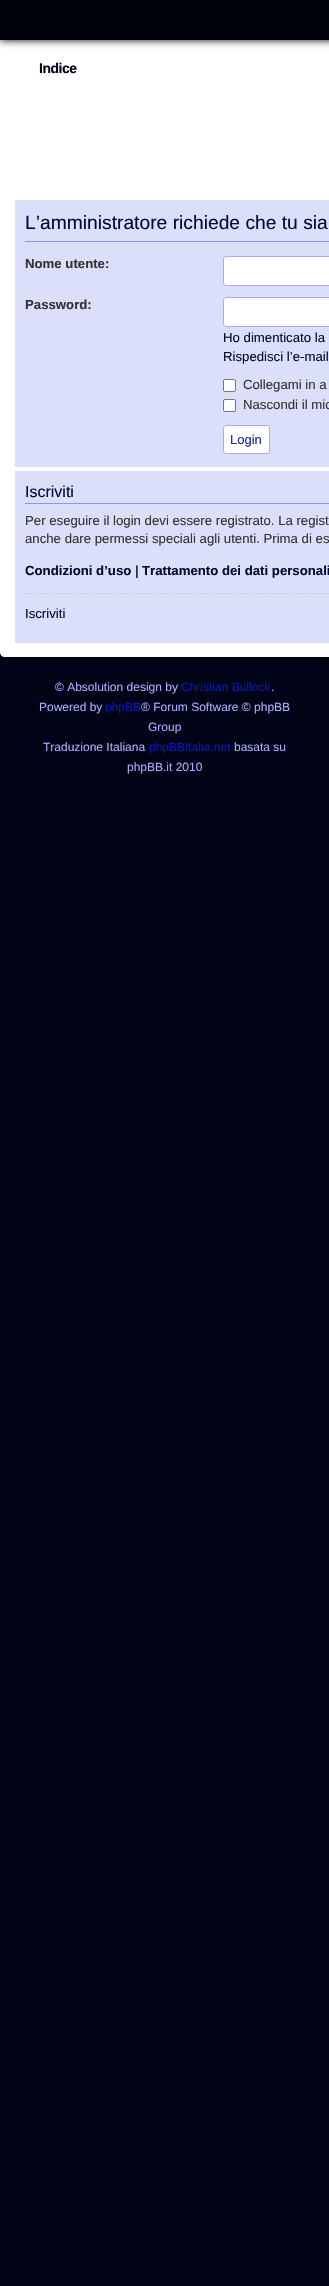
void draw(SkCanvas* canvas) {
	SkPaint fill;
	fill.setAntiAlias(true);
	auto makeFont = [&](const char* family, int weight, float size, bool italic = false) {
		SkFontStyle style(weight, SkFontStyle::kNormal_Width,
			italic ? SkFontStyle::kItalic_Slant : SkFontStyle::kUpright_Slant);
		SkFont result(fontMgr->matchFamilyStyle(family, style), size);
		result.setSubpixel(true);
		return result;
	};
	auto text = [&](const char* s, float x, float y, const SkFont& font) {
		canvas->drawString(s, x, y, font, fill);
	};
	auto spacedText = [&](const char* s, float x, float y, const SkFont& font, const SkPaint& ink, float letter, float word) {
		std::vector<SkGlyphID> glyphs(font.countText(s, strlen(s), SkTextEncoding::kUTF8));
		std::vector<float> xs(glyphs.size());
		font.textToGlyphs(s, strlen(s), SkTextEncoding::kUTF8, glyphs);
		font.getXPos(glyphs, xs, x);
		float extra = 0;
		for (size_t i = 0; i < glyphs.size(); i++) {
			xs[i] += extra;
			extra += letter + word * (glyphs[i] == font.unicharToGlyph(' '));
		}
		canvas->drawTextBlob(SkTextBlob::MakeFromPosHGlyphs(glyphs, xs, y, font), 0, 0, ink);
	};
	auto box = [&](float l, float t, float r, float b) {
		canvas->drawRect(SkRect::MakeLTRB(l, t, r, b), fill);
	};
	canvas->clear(0xFF010316);
	fill.setColor(0xFF000109);
	fill.setMaskFilter(SkMaskFilter::MakeBlur(kNormal_SkBlurStyle, 4));
	canvas->drawRoundRect(SkRect::MakeLTRB(0, 0, 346, 657), 5, 5, fill);
	fill.setMaskFilter(nullptr);
	fill.setColor(0xFFFFFFFF);
	canvas->drawPath(SkPathBuilder().moveTo(0, 0).lineTo(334, 0).lineTo(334, 652).cubicTo(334, 655, 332, 657, 329, 657).lineTo(5, 657).cubicTo(2, 657, 0, 655, 0, 652).close().detach(), fill);
	fill.setColor(0xFF000004);
	fill.setMaskFilter(SkMaskFilter::MakeBlur(kNormal_SkBlurStyle, 4));
	canvas->drawRect(SkRect::MakeLTRB(0, 0, 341, 40), fill);
	fill.setMaskFilter(nullptr);
	fill.setColor(0xFF00020A);
	box(0, 0, 329, 40);
	fill.setColor(0xFFDBDFFA);
	box(15, 200, 329, 467);
	fill.setColor(0xFF8995F1);
	box(25, 241, 329, 242);
	fill.setColor(0xFFFFFFFF);
	canvas->drawRoundRect(SkRect::MakeLTRB(223.5f, 256.5f, 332.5f, 285.5f), 2.5f, 2.5f, fill);
	fill.setStyle(SkPaint::kStroke_Style);
	fill.setStrokeWidth(1);
	fill.setColor(0xFFA6AEF1);
	canvas->drawRoundRect(SkRect::MakeLTRB(223.5f, 256.5f, 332.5f, 285.5f), 2.5f, 2.5f, fill);
	fill.setStyle(SkPaint::kFill_Style);
	fill.setColor(0xFFFFFFFF);
	canvas->drawRoundRect(SkRect::MakeLTRB(223.5f, 297.5f, 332.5f, 326.5f), 2.5f, 2.5f, fill);
	fill.setStyle(SkPaint::kStroke_Style);
	fill.setColor(0xFFA6AEF1);
	canvas->drawRoundRect(SkRect::MakeLTRB(223.5f, 297.5f, 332.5f, 326.5f), 2.5f, 2.5f, fill);
	fill.setStyle(SkPaint::kFill_Style);
	fill.setColor(0xFFFFFFFF);
	canvas->drawRoundRect(SkRect::MakeLTRB(223.5f, 379.5f, 235.5f, 391.5f), 1.5f, 1.5f, fill);
	fill.setStyle(SkPaint::kStroke_Style);
	fill.setColor(0xFF767676);
	canvas->drawRoundRect(SkRect::MakeLTRB(223.5f, 379.5f, 235.5f, 391.5f), 1.5f, 1.5f, fill);
	fill.setStyle(SkPaint::kFill_Style);
	fill.setColor(0xFFFFFFFF);
	canvas->drawRoundRect(SkRect::MakeLTRB(223.5f, 399.5f, 235.5f, 411.5f), 1.5f, 1.5f, fill);
	fill.setStyle(SkPaint::kStroke_Style);
	fill.setColor(0xFF767676);
	canvas->drawRoundRect(SkRect::MakeLTRB(223.5f, 399.5f, 235.5f, 411.5f), 1.5f, 1.5f, fill);
	fill.setStyle(SkPaint::kFill_Style);
	fill.setColor(0xFFFFFFFF);
	canvas->drawRoundRect(SkRect::MakeLTRB(223.5f, 425.5f, 269.5f, 453.5f), 2.5f, 2.5f, fill);
	fill.setStyle(SkPaint::kStroke_Style);
	fill.setColor(0xFFA6AEF1);
	canvas->drawRoundRect(SkRect::MakeLTRB(223.5f, 425.5f, 269.5f, 453.5f), 2.5f, 2.5f, fill);
	fill.setStyle(SkPaint::kFill_Style);
	fill.setColor(0xFFDBDFFA);
	box(15, 471, 329, 643);
	fill.setColor(0xFF8995F1);
	box(25, 503, 329, 504);
	fill.setStyle(SkPaint::kStroke_Style);
	fill.setColor(0xFFCCCCCC);
	fill.setPathEffect(SkDashPathEffect::Make({{3, 2.01f}}, 0));
	canvas->drawPath(SkPathBuilder().moveTo(25, 593.5f).lineTo(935, 593.5f).detach(), fill);
	fill.setPathEffect(nullptr);
	auto font1 = makeFont("Liberation Sans", 700, 14);
	fill.setStyle(SkPaint::kFill_Style);
	fill.setColor(0xFF010212);
	spacedText("Indice", 39, 73, font1, fill, -0.5f, 0);
	auto font2 = makeFont("Liberation Sans", 400, 19.25f);
	fill.setColor(0xFF04073F);
	text("L’amministratore richiede che tu sia", 25, 229, font2);
	auto font3 = makeFont("Liberation Sans", 700, 13.2f);
	fill.setColor(0xFF333333);
	text("Nome utente:", 25, 268, font3);
	text("Password:", 25, 309, font3);
	auto font4 = makeFont("Liberation Sans", 400, 13.2f);
	fill.setColor(0xFF030A34);
	text("Ho dimenticato la", 223, 342, font4);
	text("Rispedisci l’e-mail", 223, 361, font4);
	fill.setColor(0xFF333333);
	text("Collegami in a", 243, 389, font4);
	text("Nascondi il mio", 243, 409, font4);
	auto font5 = makeFont("Liberation Sans", 400, 13);
	fill.setColor(0xFF1B2A97);
	text("Login", 230, 444, font5);
	auto font6 = makeFont("Liberation Sans", 400, 16);
	fill.setColor(0xFF04073F);
	text("Iscriviti", 25, 497, font6);
	fill.setColor(0xFF333333);
	text("Per eseguire il login devi essere registrato. La regist", 25, 525, font4);
	text("anche dare permessi speciali agli utenti. Prima di es", 25, 543, font4);
	fill.setColor(0xFF030A34);
	text("Condizioni d’uso", 25, 575, font3);
	fill.setColor(0xFF333333);
	text("|", 135, 575, font3);
	fill.setColor(0xFF030A34);
	text("Trattamento dei dati personali", 142, 575, font3);
	text("Iscriviti", 25, 618, font4);
	auto font7 = makeFont("Liberation Sans", 400, 12);
	fill.setColor(0xFFA9AEFD);
	text("© Absolution design by", 55, 691, font7);
	fill.setColor(0xFF0018BD);
	text("Christian Bullock", 181, 691, font7);
	fill.setColor(0xFFA9AEFD);
	text(".", 271, 691, font7);
	text("Powered by", 39, 711, font7);
	fill.setColor(0xFF0018BD);
	text("phpBB", 105, 711, font7);
	fill.setColor(0xFFA9AEFD);
	text("® Forum Software © phpBB", 141, 711, font7);
	text("Group", 148, 731, font7);
	text("Traduzione Italiana", 43, 751, font7);
	fill.setColor(0xFF0018BD);
	text("phpBBItalia.net", 149, 751, font7);
	fill.setColor(0xFFA9AEFD);
	text("basata su", 234, 751, font7);
	text("phpBB.it 2010", 127, 771, font7);
}
